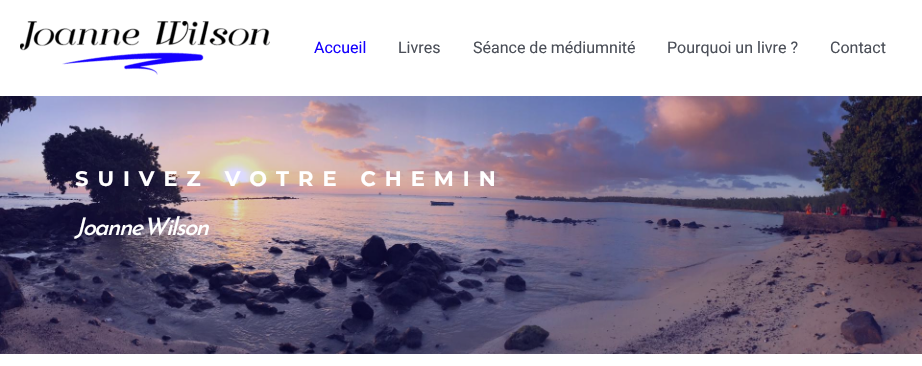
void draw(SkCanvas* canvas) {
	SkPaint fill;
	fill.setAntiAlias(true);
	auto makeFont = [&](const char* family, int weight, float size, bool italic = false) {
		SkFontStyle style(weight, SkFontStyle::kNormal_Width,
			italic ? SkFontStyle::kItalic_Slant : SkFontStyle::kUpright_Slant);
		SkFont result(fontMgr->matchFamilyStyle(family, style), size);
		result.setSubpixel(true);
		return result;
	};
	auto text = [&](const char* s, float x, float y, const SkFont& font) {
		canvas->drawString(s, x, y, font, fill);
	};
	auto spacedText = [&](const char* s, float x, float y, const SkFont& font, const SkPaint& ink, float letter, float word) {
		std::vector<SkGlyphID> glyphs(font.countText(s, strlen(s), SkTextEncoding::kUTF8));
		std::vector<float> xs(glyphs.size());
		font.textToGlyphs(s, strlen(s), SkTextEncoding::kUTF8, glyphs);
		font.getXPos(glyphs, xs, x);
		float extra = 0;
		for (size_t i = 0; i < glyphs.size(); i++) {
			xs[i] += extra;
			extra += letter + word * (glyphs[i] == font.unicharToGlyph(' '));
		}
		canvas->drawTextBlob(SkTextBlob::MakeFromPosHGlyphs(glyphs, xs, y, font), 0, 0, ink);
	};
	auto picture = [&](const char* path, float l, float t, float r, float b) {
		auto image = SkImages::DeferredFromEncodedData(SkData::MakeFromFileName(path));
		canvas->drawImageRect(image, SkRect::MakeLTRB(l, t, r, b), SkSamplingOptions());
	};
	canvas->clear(0xFFFFFFFF);
	picture("image0.png", 20, 21, 270, 75);
	picture("image1.png", 0, 96, 922, 354);
	auto font1 = makeFont("Roboto", 400, 16);
	fill.setColor(0xFF1500FF);
	text("Accueil", 314, 53, font1);
	fill.setColor(0xFF4B4F58);
	text("Livres", 398, 53, font1);
	text("Séance de médiumnité", 473, 53, font1);
	text("Pourquoi un livre ?", 667, 53, font1);
	text("Contact", 830, 53, font1);
	auto font2 = makeFont("Montserrat", 100, 21);
	fill.setColor(0xFFFFFFFF);
	spacedText("SUIVEZ VOTRE CHEMIN", 75, 186, font2, fill, 9, 0);
	auto font3 = makeFont("Reem Kufi", 400, 24, true);
	spacedText("Joanne Wilson", 75, 235, font3, fill, -1.5f, 0);
}
